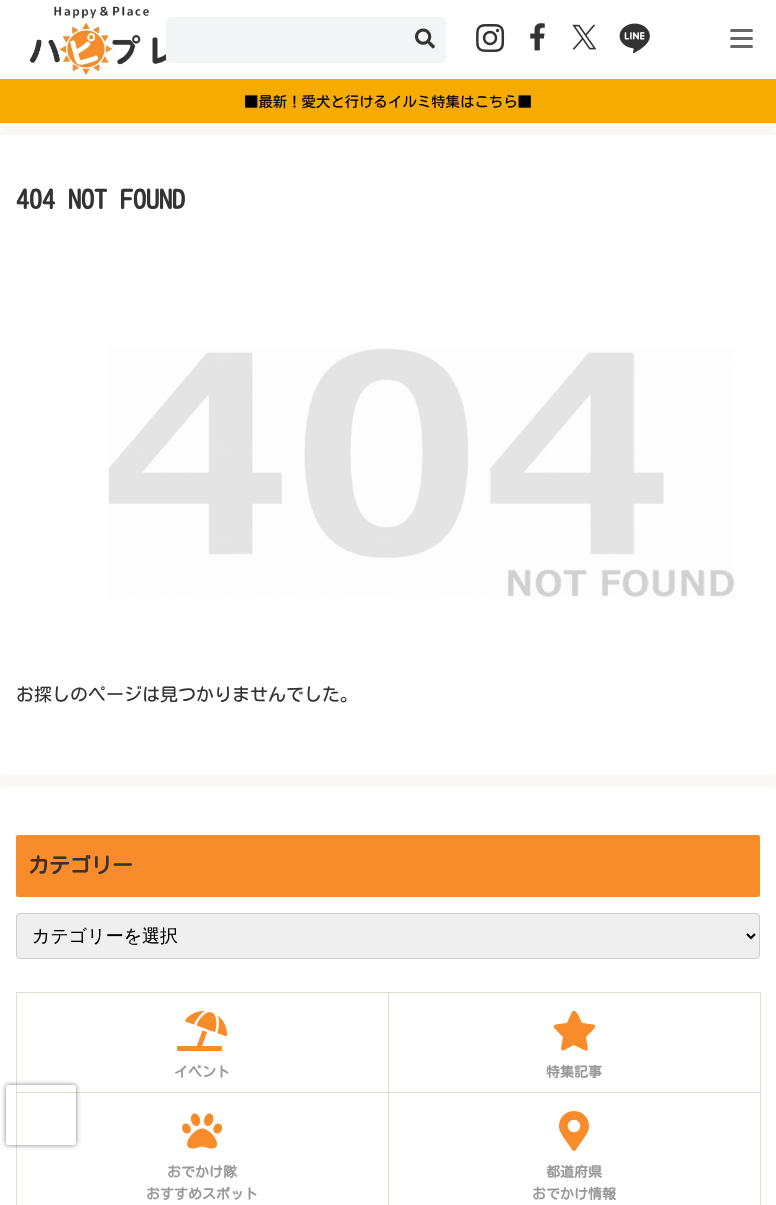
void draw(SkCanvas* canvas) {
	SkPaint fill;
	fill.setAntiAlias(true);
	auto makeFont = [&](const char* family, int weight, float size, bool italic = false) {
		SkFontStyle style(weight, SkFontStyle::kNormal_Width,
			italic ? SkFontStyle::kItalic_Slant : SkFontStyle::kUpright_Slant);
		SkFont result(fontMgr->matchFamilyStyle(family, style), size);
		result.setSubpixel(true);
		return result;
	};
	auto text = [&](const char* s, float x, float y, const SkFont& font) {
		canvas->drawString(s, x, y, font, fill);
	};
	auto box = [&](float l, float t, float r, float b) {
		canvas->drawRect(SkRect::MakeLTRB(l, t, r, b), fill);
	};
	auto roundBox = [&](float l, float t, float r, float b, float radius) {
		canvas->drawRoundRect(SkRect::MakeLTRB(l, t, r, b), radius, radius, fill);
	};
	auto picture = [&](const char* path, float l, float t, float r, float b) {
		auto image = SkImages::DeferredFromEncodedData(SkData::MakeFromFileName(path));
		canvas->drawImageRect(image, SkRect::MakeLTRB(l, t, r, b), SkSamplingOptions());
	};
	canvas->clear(0xFFF9F8F4);
	fill.setColor(0xFFFFFFFF);
	box(0, 0, 776, 79);
	picture("image0.png", 30, 6, 175, 75);
	fill.setColor(0xFFF4F5F6);
	canvas->drawRoundRect(SkRect::MakeLTRB(166.5f, 17.5f, 445.5f, 62.5f), 4.5f, 4.5f, fill);
	fill.setStyle(SkPaint::kStroke_Style);
	fill.setStrokeWidth(1);
	canvas->drawRoundRect(SkRect::MakeLTRB(166.5f, 17.5f, 445.5f, 62.5f), 4.5f, 4.5f, fill);
	picture("image1.png", 415, 28, 435, 49);
	picture("image2.png", 476, 24, 505, 52);
	picture("image3.png", 530, 23, 545, 51);
	picture("image4.png", 572, 24, 597, 50);
	picture("image5.png", 619, 23, 650, 54);
	fill.setStyle(SkPaint::kFill_Style);
	fill.setColor(0xFF666666);
	roundBox(730, 29, 753, 32, 1.5f);
	roundBox(730, 37, 753, 40, 1.5f);
	roundBox(730, 45, 753, 48, 1.5f);
	fill.setColor(0xFFF7AB00);
	box(0, 79, 776, 123);
	fill.setColor(0xFFFFFFFF);
	roundBox(0, 135, 776, 775, 4);
	picture("image6.png", 108, 347, 735, 599);
	roundBox(0, 787, 776, 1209, 4);
	fill.setColor(0xFFF98C2A);
	roundBox(16, 835, 760, 897, 2);
	fill.setColor(0xFFEFEFEF);
	canvas->drawRoundRect(SkRect::MakeLTRB(16.5f, 913.5f, 759.5f, 958.5f), 3.5f, 3.5f, fill);
	fill.setStyle(SkPaint::kStroke_Style);
	fill.setColor(0xFFCCCCCC);
	canvas->drawRoundRect(SkRect::MakeLTRB(16.5f, 913.5f, 759.5f, 958.5f), 3.5f, 3.5f, fill);
	fill.setStrokeWidth(2);
	fill.setColor(0xFF000000);
	canvas->drawPath(SkPathBuilder().moveTo(747, 934).lineTo(751, 938).lineTo(755, 934).detach(), fill);
	canvas->save();
	canvas->clipRect(SkRect::MakeLTRB(16, 992, 388, 1092));
	fill.setStyle(SkPaint::kFill_Style);
	fill.setColor(0xFFE0DDD1);
	canvas->drawPath(SkPathBuilder(SkPathFillType::kEvenOdd).moveTo(-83, 893).lineTo(487, 893).lineTo(487, 1191).lineTo(-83, 1191).close().moveTo(17, 993).lineTo(389, 993).lineTo(389, 1093).lineTo(17, 1093).close().detach(), fill);
	canvas->restore();
	picture("image7.png", 177, 1011, 227, 1051);
	box(760, 992, 761, 993);
	canvas->drawPath(SkPathBuilder().moveTo(389, 1092).lineTo(389, 1093).lineTo(761, 1093).lineTo(761, 993).lineTo(760, 993).lineTo(760, 1092).close().detach(), fill);
	canvas->save();
	canvas->clipRect(SkRect::MakeLTRB(388, 992, 760, 1092));
	canvas->drawPath(SkPathBuilder(SkPathFillType::kEvenOdd).moveTo(289, 893).lineTo(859, 893).lineTo(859, 1191).lineTo(289, 1191).close().moveTo(389, 993).lineTo(761, 993).lineTo(761, 1093).lineTo(389, 1093).close().detach(), fill);
	canvas->restore();
	fill.setColor(0xFFF98C2A);
	canvas->drawPath(SkPathBuilder().moveTo(572, 1012).cubicTo(576, 1006, 581, 1022, 582, 1023).cubicTo(599, 1025, 599, 1024, 586, 1037).cubicTo(589, 1054, 590, 1053, 574, 1045).cubicTo(559, 1053, 560, 1054, 563, 1037).cubicTo(550, 1024, 550, 1025, 567, 1023).close().detach(), fill);
	canvas->save();
	canvas->clipRect(SkRect::MakeLTRB(16, 1092, 388, 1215));
	fill.setColor(0xFFE0DDD1);
	canvas->drawPath(SkPathBuilder(SkPathFillType::kEvenOdd).moveTo(-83, 993).lineTo(487, 993).lineTo(487, 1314).lineTo(-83, 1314).close().moveTo(17, 1093).lineTo(389, 1093).lineTo(389, 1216).lineTo(17, 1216).close().detach(), fill);
	canvas->restore();
	picture("image8.png", 182, 1113, 223, 1149);
	box(760, 1092, 761, 1205);
	canvas->save();
	canvas->clipRect(SkRect::MakeLTRB(388, 1092, 760, 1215));
	canvas->drawPath(SkPathBuilder(SkPathFillType::kEvenOdd).moveTo(289, 993).lineTo(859, 993).lineTo(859, 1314).lineTo(289, 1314).close().moveTo(389, 1093).lineTo(761, 1093).lineTo(761, 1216).lineTo(389, 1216).close().detach(), fill);
	canvas->restore();
	picture("image9.png", 559, 1111, 589, 1151);
	canvas->save();
	canvas->clipPath(SkPathBuilder(SkPathFillType::kEvenOdd).moveTo(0, 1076).lineTo(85, 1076).lineTo(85, 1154).lineTo(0, 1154).close().moveTo(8, 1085).lineTo(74, 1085).cubicTo(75, 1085, 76, 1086, 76, 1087).lineTo(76, 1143).cubicTo(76, 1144, 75, 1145, 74, 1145).lineTo(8, 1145).cubicTo(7, 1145, 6, 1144, 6, 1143).lineTo(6, 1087).cubicTo(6, 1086, 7, 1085, 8, 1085).close().detach(), true);
	fill.setColor(0xFF808080);
	fill.setMaskFilter(SkMaskFilter::MakeBlur(kNormal_SkBlurStyle, 2.5f));
	canvas->drawRoundRect(SkRect::MakeLTRB(6, 1085, 76, 1145), 2, 2, fill);
	fill.setMaskFilter(nullptr);
	canvas->restore();
	auto font1 = makeFont("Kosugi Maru", 400, 14.4f);
	fill.setColor(0xFF000000);
	text("■最新！愛犬と行けるイルミ特集はこちら■", 244, 107, font1);
	auto font2 = makeFont("Kosugi Maru", 700, 26);
	fill.setColor(0xFF333333);
	text("404 NOT FOUND", 16, 209, font2);
	auto font3 = makeFont("Kosugi Maru", 400, 18);
	text("お探しのページは見つかりませんでした。", 16, 701, font3);
	auto font4 = makeFont("Kosugi Maru", 700, 21);
	text("カテゴリー", 28, 873, font4);
	auto font5 = makeFont("WenQuanYi Zen Hei", 500, 18);
	fill.setColor(0xFF000000);
	text("カテゴリーを選択", 32, 942, font5);
	auto font6 = makeFont("Kosugi Maru", 700, 14);
	fill.setColor(0xFF999999);
	text("イベント", 174, 1077, font6);
	text("特集記事", 546, 1077, font6);
	text("おでかけ隊", 167, 1177, font6);
	text("おすすめスポット", 146, 1199, font6);
	text("都道府県", 546, 1177, font6);
	text("おでかけ情報", 532, 1199, font6);
}
